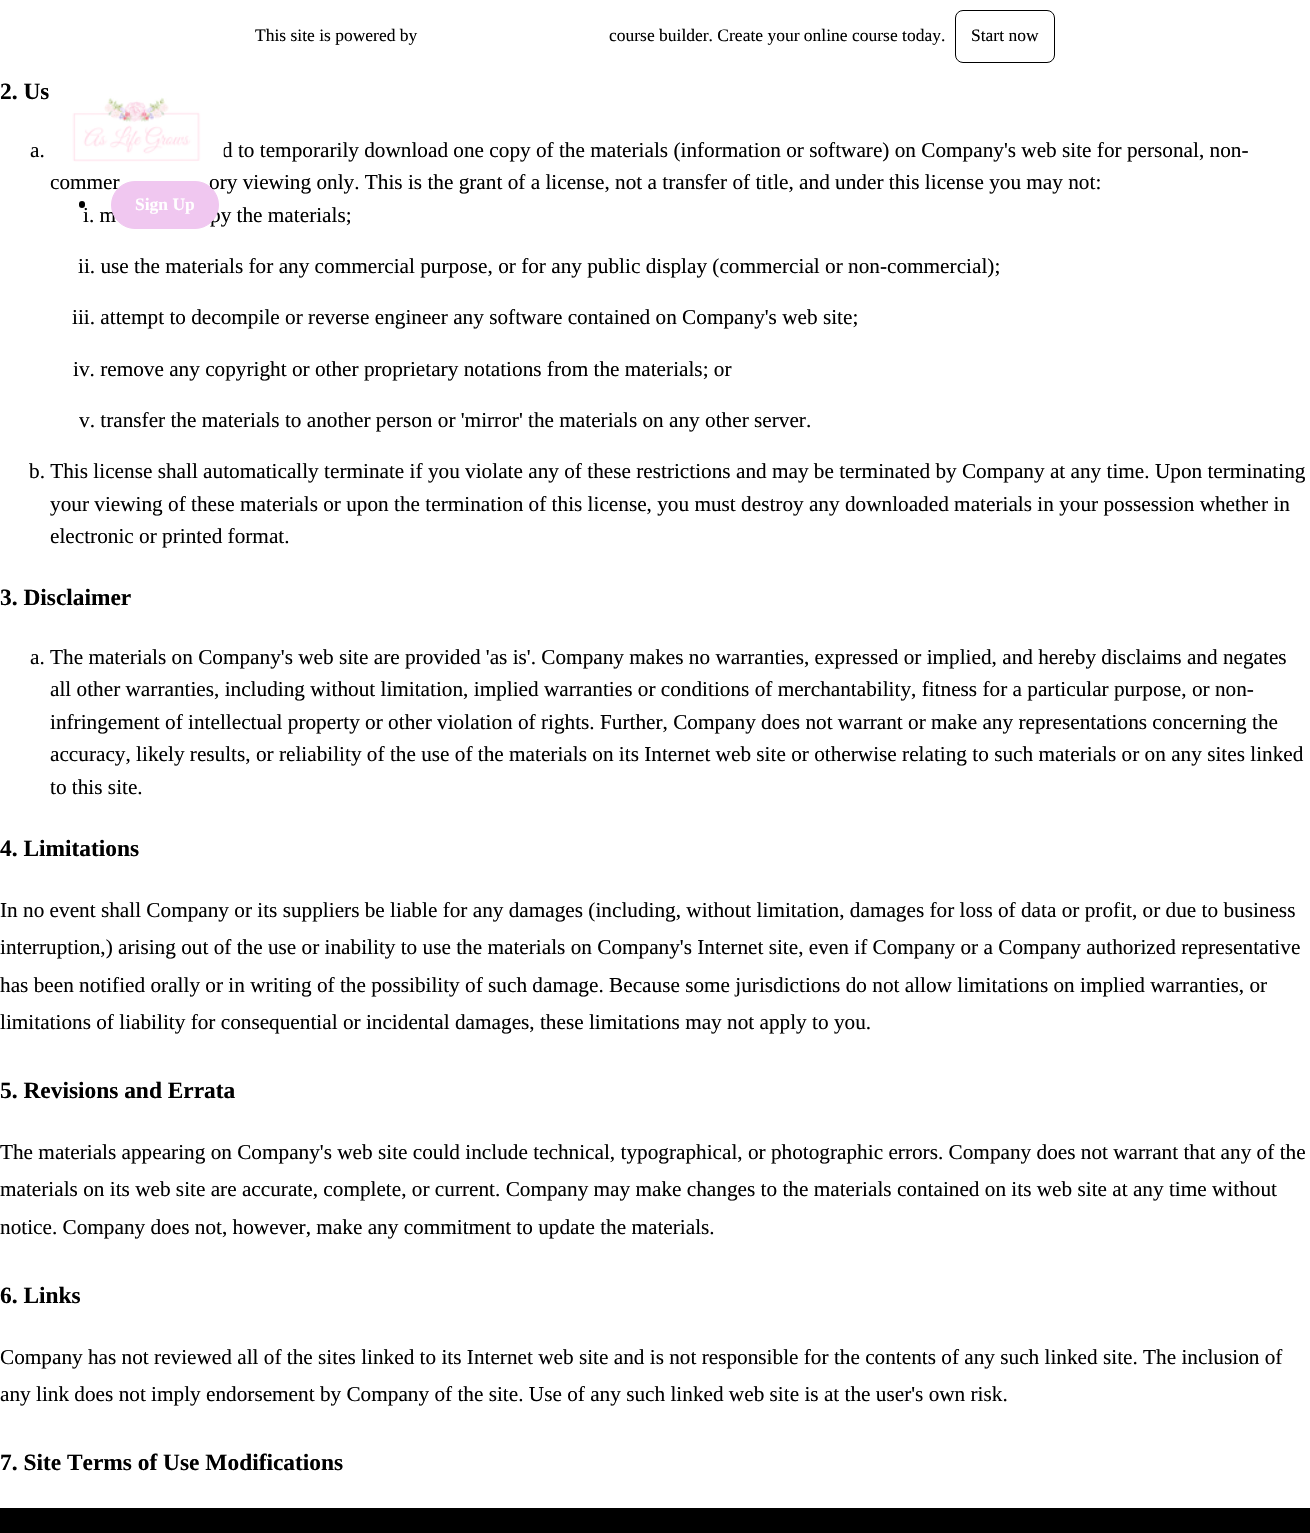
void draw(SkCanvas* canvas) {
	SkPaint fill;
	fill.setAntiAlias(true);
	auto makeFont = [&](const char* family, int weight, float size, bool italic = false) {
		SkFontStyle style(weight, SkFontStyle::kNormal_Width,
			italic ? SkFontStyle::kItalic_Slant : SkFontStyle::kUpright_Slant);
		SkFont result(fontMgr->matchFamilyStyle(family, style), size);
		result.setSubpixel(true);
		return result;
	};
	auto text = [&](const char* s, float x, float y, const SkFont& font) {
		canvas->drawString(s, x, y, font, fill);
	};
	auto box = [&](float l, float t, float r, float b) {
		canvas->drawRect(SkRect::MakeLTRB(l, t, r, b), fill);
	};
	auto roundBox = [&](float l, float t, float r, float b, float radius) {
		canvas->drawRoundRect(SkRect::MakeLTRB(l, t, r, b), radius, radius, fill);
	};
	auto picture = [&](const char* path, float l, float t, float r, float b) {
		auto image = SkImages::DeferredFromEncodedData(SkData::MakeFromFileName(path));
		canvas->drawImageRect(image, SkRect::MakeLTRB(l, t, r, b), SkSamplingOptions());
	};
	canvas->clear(0xFFFFFFFF);
	fill.setStyle(SkPaint::kStroke_Style);
	fill.setStrokeWidth(1);
	fill.setColor(0xFF000000);
	canvas->drawRoundRect(SkRect::MakeLTRB(955.5f, 10.5f, 1054.5f, 62.5f), 7.5f, 7.5f, fill);
	fill.setStyle(SkPaint::kFill_Style);
	roundBox(79, 201, 85, 208, 3);
	box(0, 1508, 1310, 1533);
	auto font1 = makeFont("Liberation Serif", 400, 17.5f);
	text("This site is powered by", 255, 41, font1);
	text("course builder. Create your online course today.", 609, 41, font1);
	text("Start now", 971, 41, font1);
	auto font2 = makeFont("Liberation Serif", 700, 23.4f);
	text("2. Us", 0, 99, font2);
	auto font3 = makeFont("Liberation Serif", 400, 21.25f);
	text("a.", 30, 157, font3);
	text("d to temporarily download one copy of the materials (information or software) on Company's web site for personal, non-", 222, 157, font3);
	picture("image0.png", 48, 92, 224, 162);
	text("commer", 50, 189, font3);
	text("ory viewing only. This is the grant of a license, not a transfer of title, and under this license you may not:", 209, 189, font3);
	text("i. m", 83, 222, font3);
	text("py the materials;", 210, 222, font3);
	fill.setColor(0xFFF0C7F0);
	canvas->drawRoundRect(SkRect::MakeLTRB(111.5f, 181.5f, 218.5f, 228.5f), 23.5f, 23.5f, fill);
	fill.setStyle(SkPaint::kStroke_Style);
	canvas->drawRoundRect(SkRect::MakeLTRB(111.5f, 181.5f, 218.5f, 228.5f), 23.5f, 23.5f, fill);
	auto font4 = makeFont("Liberation Serif", 700, 17.5f);
	fill.setStyle(SkPaint::kFill_Style);
	fill.setColor(0xFFFFFFFF);
	text("Sign Up", 135, 210, font4);
	fill.setColor(0xFF000000);
	text("ii. use the materials for any commercial purpose, or for any public display (commercial or non-commercial);", 78, 273, font3);
	text("iii. attempt to decompile or reverse engineer any software contained on Company's web site;", 72, 324, font3);
	text("iv. remove any copyright or other proprietary notations from the materials; or", 73, 376, font3);
	text("v. transfer the materials to another person or 'mirror' the materials on any other server.", 79, 427, font3);
	text("b. This license shall automatically terminate if you violate any of these restrictions and may be terminated by Company at any time. Upon terminating", 29, 478, font3);
	text("your viewing of these materials or upon the termination of this license, you must destroy any downloaded materials in your possession whether in", 50, 511, font3);
	text("electronic or printed format.", 50, 543, font3);
	text("3. Disclaimer", 0, 605, font2);
	text("a. The materials on Company's web site are provided 'as is'. Company makes no warranties, expressed or implied, and hereby disclaims and negates", 30, 664, font3);
	text("all other warranties, including without limitation, implied warranties or conditions of merchantability, fitness for a particular purpose, or non-", 50, 696, font3);
	text("infringement of intellectual property or other violation of rights. Further, Company does not warrant or make any representations concerning the", 50, 729, font3);
	text("accuracy, likely results, or reliability of the use of the materials on its Internet web site or otherwise relating to such materials or on any sites linked", 50, 761, font3);
	text("to this site.", 50, 794, font3);
	text("4. Limitations", 0, 856, font2);
	text("In no event shall Company or its suppliers be liable for any damages (including, without limitation, damages for loss of data or profit, or due to business", 0, 917, font3);
	text("interruption,) arising out of the use or inability to use the materials on Company's Internet site, even if Company or a Company authorized representative", 0, 954, font3);
	text("has been notified orally or in writing of the possibility of such damage. Because some jurisdictions do not allow limitations on implied warranties, or", 0, 992, font3);
	text("limitations of liability for consequential or incidental damages, these limitations may not apply to you.", 0, 1029, font3);
	text("5. Revisions and Errata", 0, 1098, font2);
	text("The materials appearing on Company's web site could include technical, typographical, or photographic errors. Company does not warrant that any of the", 0, 1159, font3);
	text("materials on its web site are accurate, complete, or current. Company may make changes to the materials contained on its web site at any time without", 0, 1196, font3);
	text("notice. Company does not, however, make any commitment to update the materials.", 0, 1234, font3);
	text("6. Links", 0, 1303, font2);
	text("Company has not reviewed all of the sites linked to its Internet web site and is not responsible for the contents of any such linked site. The inclusion of", 0, 1364, font3);
	text("any link does not imply endorsement by Company of the site. Use of any such linked web site is at the user's own risk.", 0, 1401, font3);
	text("7. Site Terms of Use Modifications", 0, 1470, font2);
}
